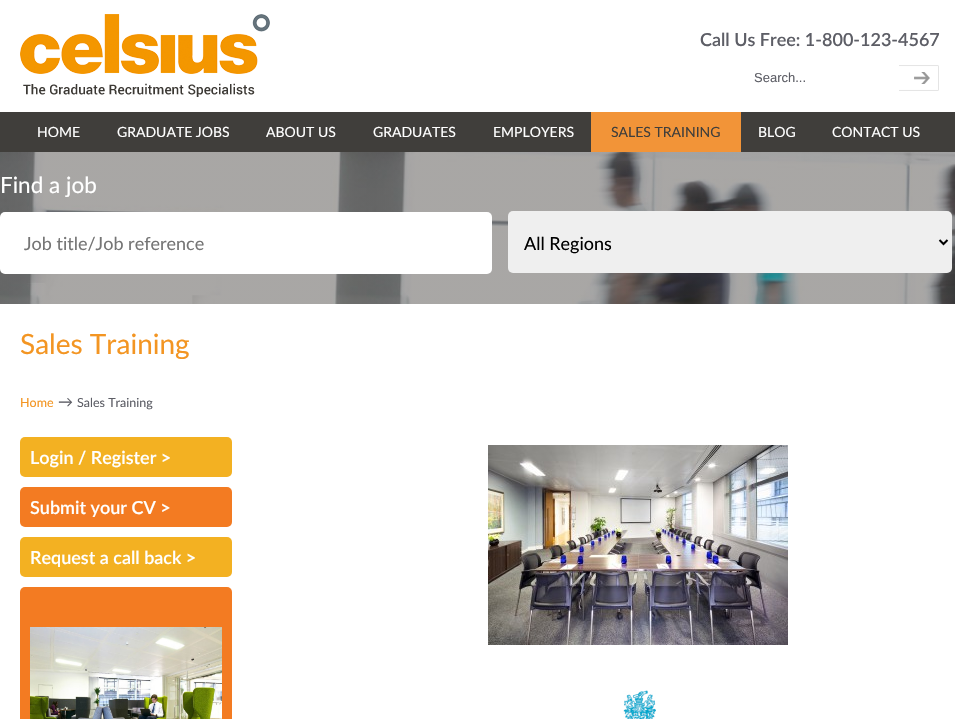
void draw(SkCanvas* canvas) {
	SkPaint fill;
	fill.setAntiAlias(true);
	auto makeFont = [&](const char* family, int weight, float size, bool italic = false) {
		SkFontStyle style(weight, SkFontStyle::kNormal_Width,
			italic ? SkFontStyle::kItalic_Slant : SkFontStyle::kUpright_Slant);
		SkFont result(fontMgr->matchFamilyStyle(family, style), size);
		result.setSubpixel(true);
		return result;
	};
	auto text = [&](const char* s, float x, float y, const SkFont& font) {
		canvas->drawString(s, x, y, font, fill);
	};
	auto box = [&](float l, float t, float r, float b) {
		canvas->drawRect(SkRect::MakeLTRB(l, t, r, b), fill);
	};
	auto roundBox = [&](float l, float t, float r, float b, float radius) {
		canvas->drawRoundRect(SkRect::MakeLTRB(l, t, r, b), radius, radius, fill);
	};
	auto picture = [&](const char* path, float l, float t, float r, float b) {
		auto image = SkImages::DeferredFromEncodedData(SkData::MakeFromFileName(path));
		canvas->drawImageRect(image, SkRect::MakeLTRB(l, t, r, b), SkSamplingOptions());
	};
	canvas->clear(0xFFFFFFFF);
	picture("image0.png", 20, 14, 270, 97);
	picture("image1.png", 899, 65, 939, 91);
	fill.setColor(0xFF403E3B);
	box(0, 112, 955, 152);
	fill.setColor(0xFFF29438);
	box(591, 112, 741, 152);
	picture("image2.png", 0, 152, 955, 304);
	fill.setColor(0xFFFFFFFF);
	roundBox(0, 212, 492, 274, 5);
	fill.setColor(0xFFEFEFEF);
	roundBox(508, 211, 952, 273, 5);
	fill.setStyle(SkPaint::kStroke_Style);
	fill.setStrokeWidth(2);
	fill.setColor(0xFF000000);
	canvas->drawPath(SkPathBuilder().moveTo(939.5f, 240).lineTo(943.5f, 244).lineTo(947.5f, 240).detach(), fill);
	fill.setStyle(SkPaint::kFill_Style);
	fill.setColor(0xFFF3B122);
	roundBox(20, 437, 232, 477, 5);
	fill.setColor(0xFFF37B22);
	roundBox(20, 487, 232, 527, 5);
	fill.setColor(0xFFF3B122);
	roundBox(20, 537, 232, 577, 5);
	fill.setColor(0xFFF37B22);
	roundBox(20, 587, 232, 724, 5);
	picture("image3.png", 30, 627, 222, 719);
	picture("image4.png", 488, 445, 788, 645);
	picture("image5.png", 623, 690, 656, 719);
	auto font1 = makeFont("Lato", 600, 18);
	fill.setColor(0xFF5D5E66);
	text("Call Us Free: 1-800-123-4567", 700, 46, font1);
	auto font2 = makeFont("Liberation Sans", 400, 13);
	text("Search...", 754, 82, font2);
	auto font3 = makeFont("Lato", 400, 14);
	fill.setColor(0xFFFFFFFF);
	text("HOME", 37, 137, font3);
	text("GRADUATE JOBS", 117, 137, font3);
	text("ABOUT US", 266, 137, font3);
	text("GRADUATES", 373, 137, font3);
	text("EMPLOYERS", 493, 137, font3);
	fill.setColor(0xFF403E3B);
	text("SALES TRAINING", 611, 137, font3);
	fill.setColor(0xFFFFFFFF);
	text("BLOG", 758, 137, font3);
	text("CONTACT US", 832, 137, font3);
	auto font4 = makeFont("Lato", 400, 22.5f);
	text("Find a job", 0, 193, font4);
	auto font5 = makeFont("Lato", 400, 18);
	fill.setColor(0xFF757575);
	text("Job title/Job reference", 24, 250, font5);
	fill.setColor(0xFF000000);
	text("All Regions", 524, 250, font5);
	auto font6 = makeFont("Lato", 400, 28);
	fill.setColor(0xFFF39522);
	text("Sales Training", 20, 354, font6);
	auto font7 = makeFont("Lato", 400, 12.5f);
	text("Home", 20, 407, font7);
	auto font8 = makeFont("Lato", 400, 15);
	fill.setColor(0xFF5D5E66);
	text("→", 58, 407, font8);
	text("Sales Training", 77, 407, font7);
	fill.setColor(0xFFFFFFFF);
	text("Login / Register >", 30, 464, font1);
	text("Submit your CV >", 30, 514, font1);
	text("Request a call back >", 30, 564, font1);
}
